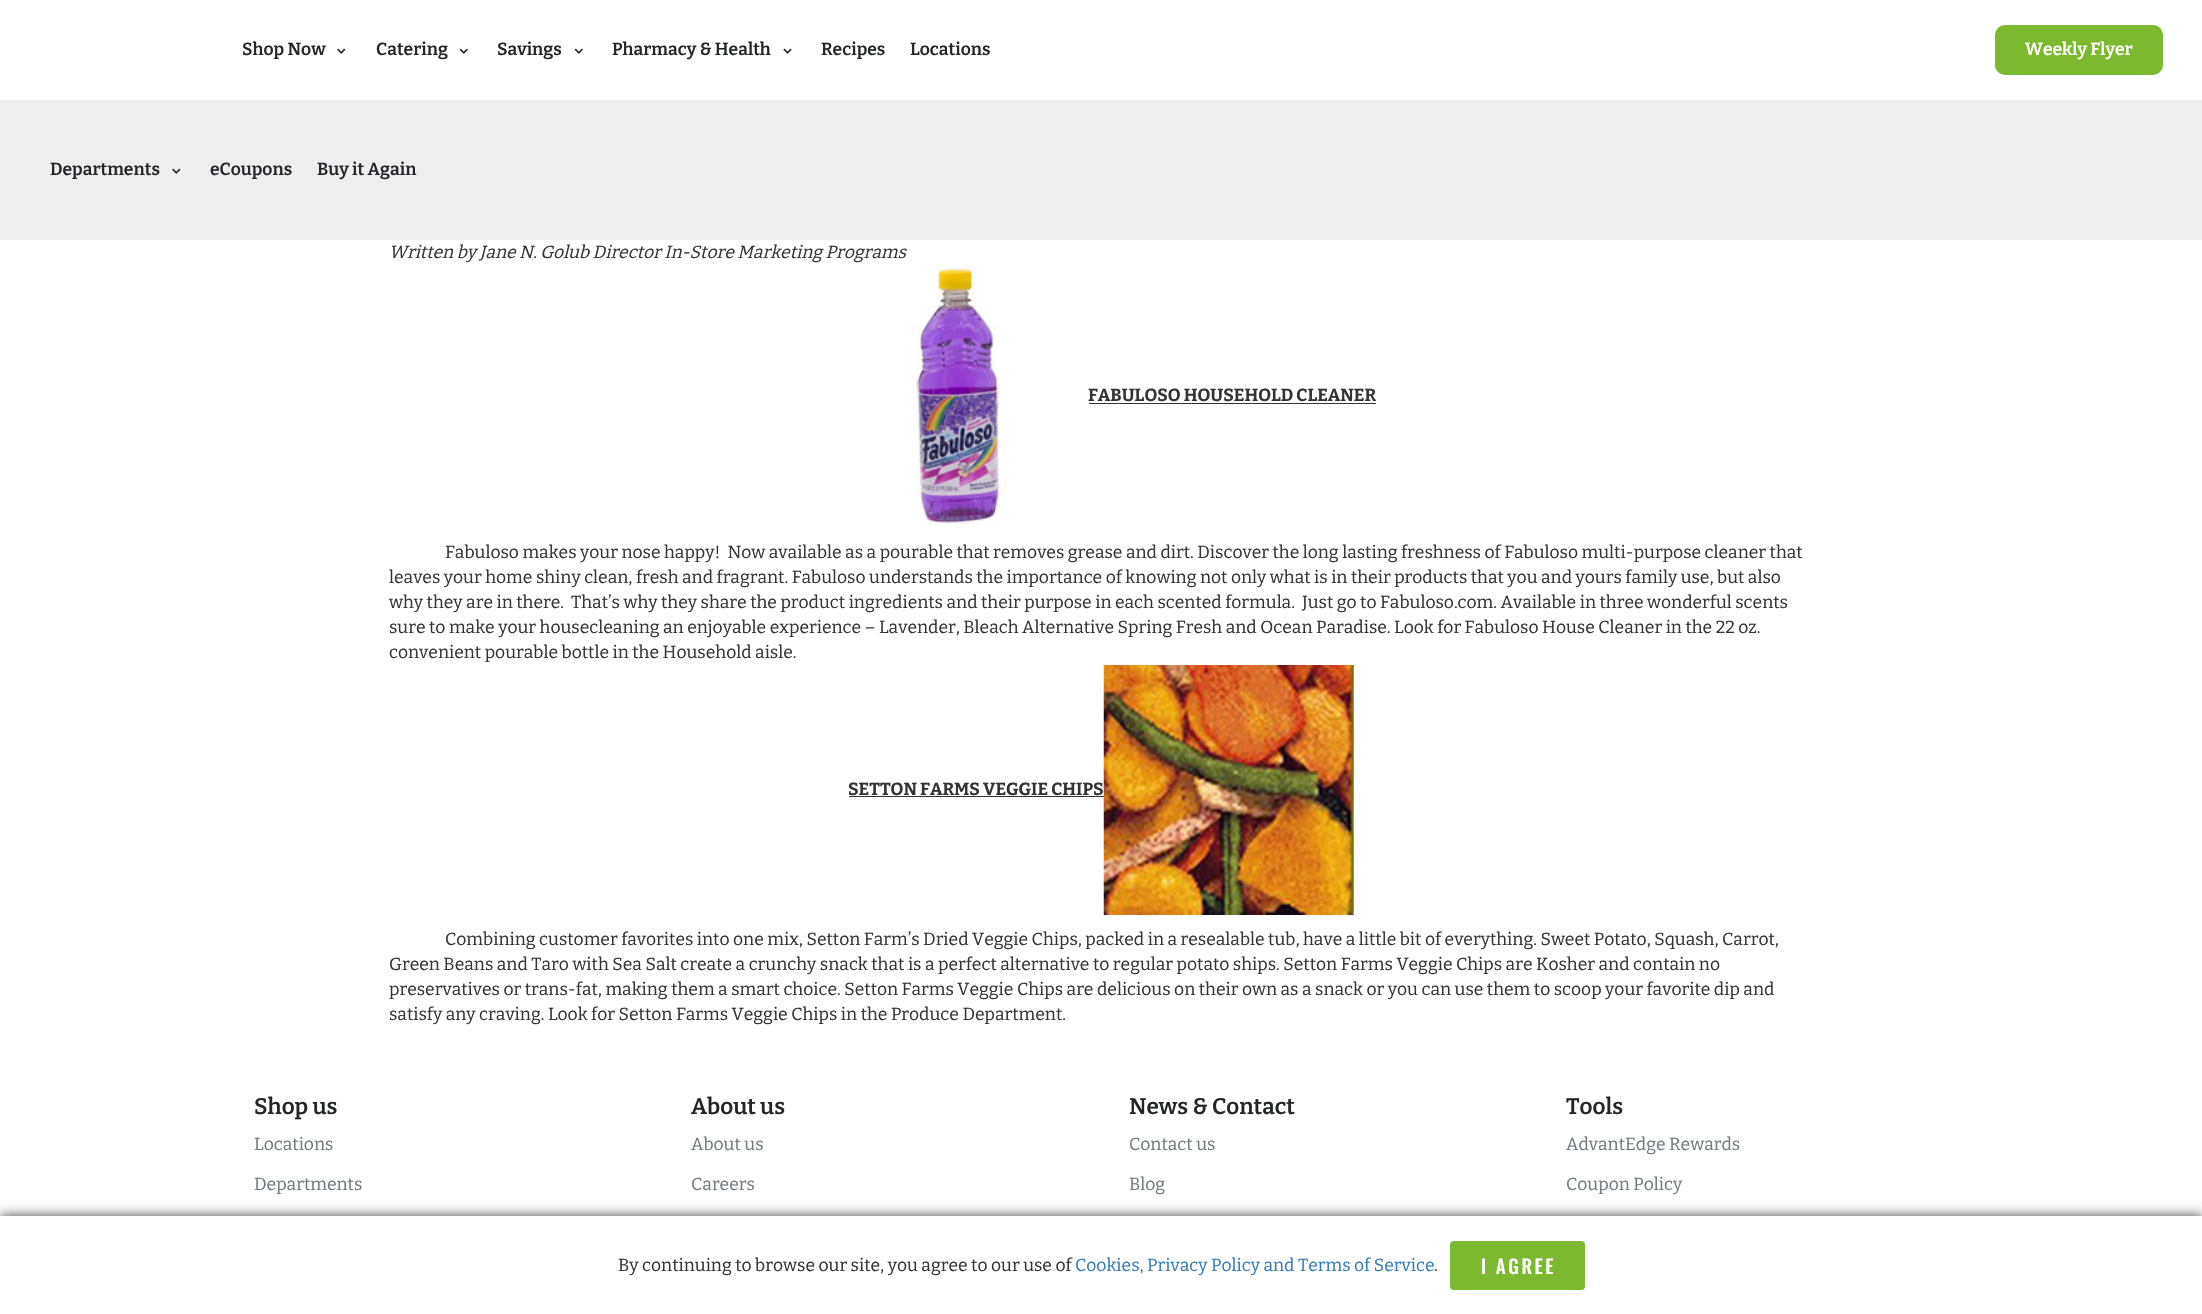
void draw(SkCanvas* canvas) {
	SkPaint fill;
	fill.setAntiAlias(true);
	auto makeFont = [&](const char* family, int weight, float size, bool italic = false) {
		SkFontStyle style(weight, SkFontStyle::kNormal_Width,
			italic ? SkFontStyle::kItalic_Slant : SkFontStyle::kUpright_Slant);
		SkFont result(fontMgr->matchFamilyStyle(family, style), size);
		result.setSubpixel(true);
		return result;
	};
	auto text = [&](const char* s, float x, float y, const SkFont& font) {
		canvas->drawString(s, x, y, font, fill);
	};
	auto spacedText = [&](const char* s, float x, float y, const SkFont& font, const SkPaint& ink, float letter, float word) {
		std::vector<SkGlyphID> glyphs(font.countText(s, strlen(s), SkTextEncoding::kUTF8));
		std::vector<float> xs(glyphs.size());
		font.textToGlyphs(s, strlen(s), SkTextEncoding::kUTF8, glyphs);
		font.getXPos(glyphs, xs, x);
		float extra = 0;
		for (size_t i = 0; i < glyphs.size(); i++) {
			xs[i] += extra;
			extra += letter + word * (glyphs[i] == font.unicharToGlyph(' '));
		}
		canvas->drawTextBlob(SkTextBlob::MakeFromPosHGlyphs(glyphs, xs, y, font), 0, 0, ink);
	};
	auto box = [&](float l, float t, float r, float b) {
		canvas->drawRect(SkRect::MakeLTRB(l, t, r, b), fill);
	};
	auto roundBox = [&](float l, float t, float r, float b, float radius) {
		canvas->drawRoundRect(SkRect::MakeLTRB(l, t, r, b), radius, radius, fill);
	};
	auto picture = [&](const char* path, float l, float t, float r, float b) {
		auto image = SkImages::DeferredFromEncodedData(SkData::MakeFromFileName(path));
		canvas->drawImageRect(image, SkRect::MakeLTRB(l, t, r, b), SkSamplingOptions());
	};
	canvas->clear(0xFFFFFFFF);
	picture("image0.png", 337, 48, 346, 54);
	picture("image1.png", 459, 48, 468, 54);
	picture("image1.png", 574, 48, 583, 54);
	picture("image2.png", 783, 48, 792, 54);
	fill.setColor(0xFF7BBA2F);
	roundBox(1995, 25, 2163, 75, 10);
	fill.setColor(0xFFEEEEEE);
	box(0, 100, 2202, 240);
	picture("image3.png", 172, 168, 181, 174);
	picture("image4.png", 916, 265, 1006, 525);
	fill.setColor(0xFF333333);
	box(1089, 403, 1376, 404);
	box(849, 796, 1104, 797);
	fill.setColor(0xBF000000);
	fill.setMaskFilter(SkMaskFilter::MakeBlur(kNormal_SkBlurStyle, 6));
	canvas->drawRect(SkRect::MakeLTRB(0, 1216, 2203, 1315), fill);
	fill.setMaskFilter(nullptr);
	fill.setColor(0xFFFFFFFF);
	box(0, 1216, 2202, 1314);
	fill.setColor(0xFF7BBA2F);
	roundBox(1450, 1241, 1585, 1290, 4);
	auto font1 = makeFont("Bitter", 600, 17.5f);
	fill.setColor(0xFF242529);
	text("Shop Now", 242, 55, font1);
	text("Catering", 376, 55, font1);
	text("Savings", 497, 55, font1);
	text("Pharmacy & Health", 612, 55, font1);
	text("Recipes", 821, 55, font1);
	text("Locations", 910, 55, font1);
	fill.setColor(0xFFFFFFFF);
	text("Weekly Flyer", 2025, 55, font1);
	fill.setColor(0xFF242529);
	text("Departments", 50, 175, font1);
	text("eCoupons", 210, 175, font1);
	text("Buy it Again", 317, 175, font1);
	auto font2 = makeFont("Bitter", 400, 17.5f, true);
	fill.setColor(0xFF333333);
	text("Written by Jane N. Golub Director In-Store Marketing Programs", 389, 258, font2);
	auto font3 = makeFont("Bitter", 700, 17.5f);
	text("FABULOSO HOUSEHOLD CLEANER", 1088, 401, font3);
	auto font4 = makeFont("Bitter", 400, 17.5f);
	text("Fabuloso makes your nose happy!  Now available as a pourable that removes grease and dirt. Discover the long lasting freshness of Fabuloso multi-purpose cleaner that", 445, 558, font4);
	text("leaves your home shiny clean, fresh and fragrant. Fabuloso understands the importance of knowing not only what is in their products that you and yours family use, but also", 389, 583, font4);
	text("why they are in there.  That’s why they share the product ingredients and their purpose in each scented formula.  Just go to Fabuloso.com. Available in three wonderful scents", 389, 608, font4);
	text("sure to make your housecleaning an enjoyable experience – Lavender, Bleach Alternative Spring Fresh and Ocean Paradise. Look for Fabuloso House Cleaner in the 22 oz.", 389, 633, font4);
	text("convenient pourable bottle in the Household aisle.", 389, 658, font4);
	text("SETTON FARMS VEGGIE CHIPS", 848, 795, font3);
	picture("image5.png", 1103, 665, 1354, 915);
	text("Combining customer favorites into one mix, Setton Farm’s Dried Veggie Chips, packed in a resealable tub, have a little bit of everything. Sweet Potato, Squash, Carrot,", 445, 945, font4);
	text("Green Beans and Taro with Sea Salt create a crunchy snack that is a perfect alternative to regular potato ships. Setton Farms Veggie Chips are Kosher and contain no", 389, 970, font4);
	text("preservatives or trans-fat, making them a smart choice. Setton Farms Veggie Chips are delicious on their own as a snack or you can use them to scoop your favorite dip and", 389, 995, font4);
	text("satisfy any craving. Look for Setton Farms Veggie Chips in the Produce Department.", 389, 1020, font4);
	auto font5 = makeFont("Bitter", 600, 22.5f);
	fill.setColor(0xFF242529);
	text("Shop us", 254, 1114, font5);
	fill.setColor(0xFF72767E);
	text("Locations", 254, 1150, font4);
	text("Departments", 254, 1190, font4);
	fill.setColor(0xFF242529);
	text("About us", 691, 1114, font5);
	fill.setColor(0xFF72767E);
	text("About us", 691, 1150, font4);
	text("Careers", 691, 1190, font4);
	fill.setColor(0xFF242529);
	text("News & Contact", 1129, 1114, font5);
	fill.setColor(0xFF72767E);
	text("Contact us", 1129, 1150, font4);
	text("Blog", 1129, 1190, font4);
	fill.setColor(0xFF242529);
	text("Tools", 1566, 1114, font5);
	fill.setColor(0xFF72767E);
	text("AdvantEdge Rewards", 1566, 1150, font4);
	text("Coupon Policy", 1566, 1190, font4);
	fill.setColor(0xFF333333);
	text("By continuing to browse our site, you agree to our use of", 618, 1271, font4);
	fill.setColor(0xFF337AB7);
	text("Cookies, Privacy Policy and Terms of Service", 1075, 1271, font4);
	fill.setColor(0xFF333333);
	text(".", 1434, 1271, font4);
	auto font6 = makeFont("Oswald", 500, 19);
	fill.setColor(0xFFFFFFFF);
	spacedText("I AGREE", 1481, 1274, font6, fill, 2.5f, 0);
}
